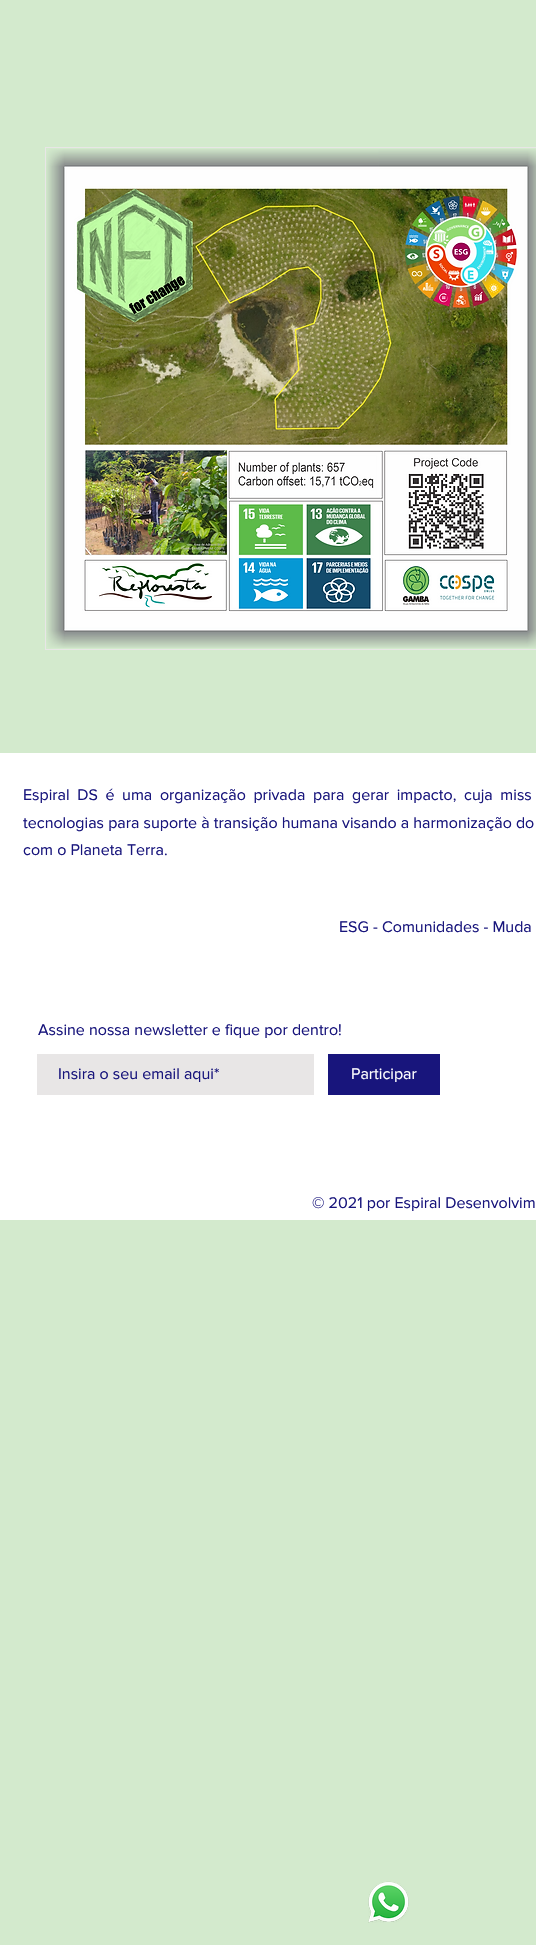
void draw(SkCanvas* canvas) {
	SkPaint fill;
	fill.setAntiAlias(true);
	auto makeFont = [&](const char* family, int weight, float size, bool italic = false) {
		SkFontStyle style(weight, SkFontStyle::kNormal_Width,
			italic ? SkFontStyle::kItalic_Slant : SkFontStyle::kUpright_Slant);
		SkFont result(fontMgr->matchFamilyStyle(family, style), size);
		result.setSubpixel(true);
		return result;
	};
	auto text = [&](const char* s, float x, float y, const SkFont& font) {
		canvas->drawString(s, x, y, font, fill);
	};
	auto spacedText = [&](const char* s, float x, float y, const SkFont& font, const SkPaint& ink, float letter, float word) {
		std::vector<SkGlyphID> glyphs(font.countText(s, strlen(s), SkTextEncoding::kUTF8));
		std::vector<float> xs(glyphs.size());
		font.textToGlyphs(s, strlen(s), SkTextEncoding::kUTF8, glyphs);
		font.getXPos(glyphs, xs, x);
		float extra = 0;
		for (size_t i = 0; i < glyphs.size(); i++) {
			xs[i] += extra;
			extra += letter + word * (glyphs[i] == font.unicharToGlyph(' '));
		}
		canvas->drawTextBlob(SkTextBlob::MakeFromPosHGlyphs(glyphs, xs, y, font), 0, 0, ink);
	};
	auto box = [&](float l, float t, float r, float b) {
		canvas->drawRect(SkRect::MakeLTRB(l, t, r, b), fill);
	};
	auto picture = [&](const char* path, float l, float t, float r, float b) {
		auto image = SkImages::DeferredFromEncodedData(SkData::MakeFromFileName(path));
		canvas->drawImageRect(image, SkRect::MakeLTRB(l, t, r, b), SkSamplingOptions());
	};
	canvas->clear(0xFFD3EACD);
	fill.setStyle(SkPaint::kStroke_Style);
	fill.setStrokeWidth(1);
	fill.setColor(0xFFE8E6E6);
	canvas->drawRect(SkRect::MakeLTRB(45.5f, 147.5f, 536.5f, 649.5f), fill);
	picture("image0.png", 46, 149, 536, 648);
	fill.setStyle(SkPaint::kFill_Style);
	fill.setColor(0xFFFFFFFF);
	box(0, 753, 536, 1220);
	fill.setColor(0xFFE8E6E6);
	box(37, 1054, 314, 1095);
	fill.setColor(0xFF18157C);
	box(328, 1054, 440, 1095);
	picture("image1.png", 368, 1881, 409, 1923);
	auto font1 = makeFont("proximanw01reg", 400, 16);
	spacedText("Espiral DS é uma organização privada para gerar impacto, cuja miss", 23, 800, font1, fill, 0, 3.5f);
	text("tecnologias para suporte à transição humana visando a harmonização do", 23, 828, font1);
	text("com o Planeta Terra.", 23, 855, font1);
	text("ESG - Comunidades - Muda", 339, 932, font1);
	text("Assine nossa newsletter e fique por dentro!", 38, 1035, font1);
	text("Insira o seu email aqui*", 58, 1079, font1);
	fill.setColor(0xFFFFFFFF);
	text("Participar", 351, 1079, font1);
	fill.setColor(0xFF18157C);
	text("© 2021 por Espiral Desenvolvim", 312, 1208, font1);
}
